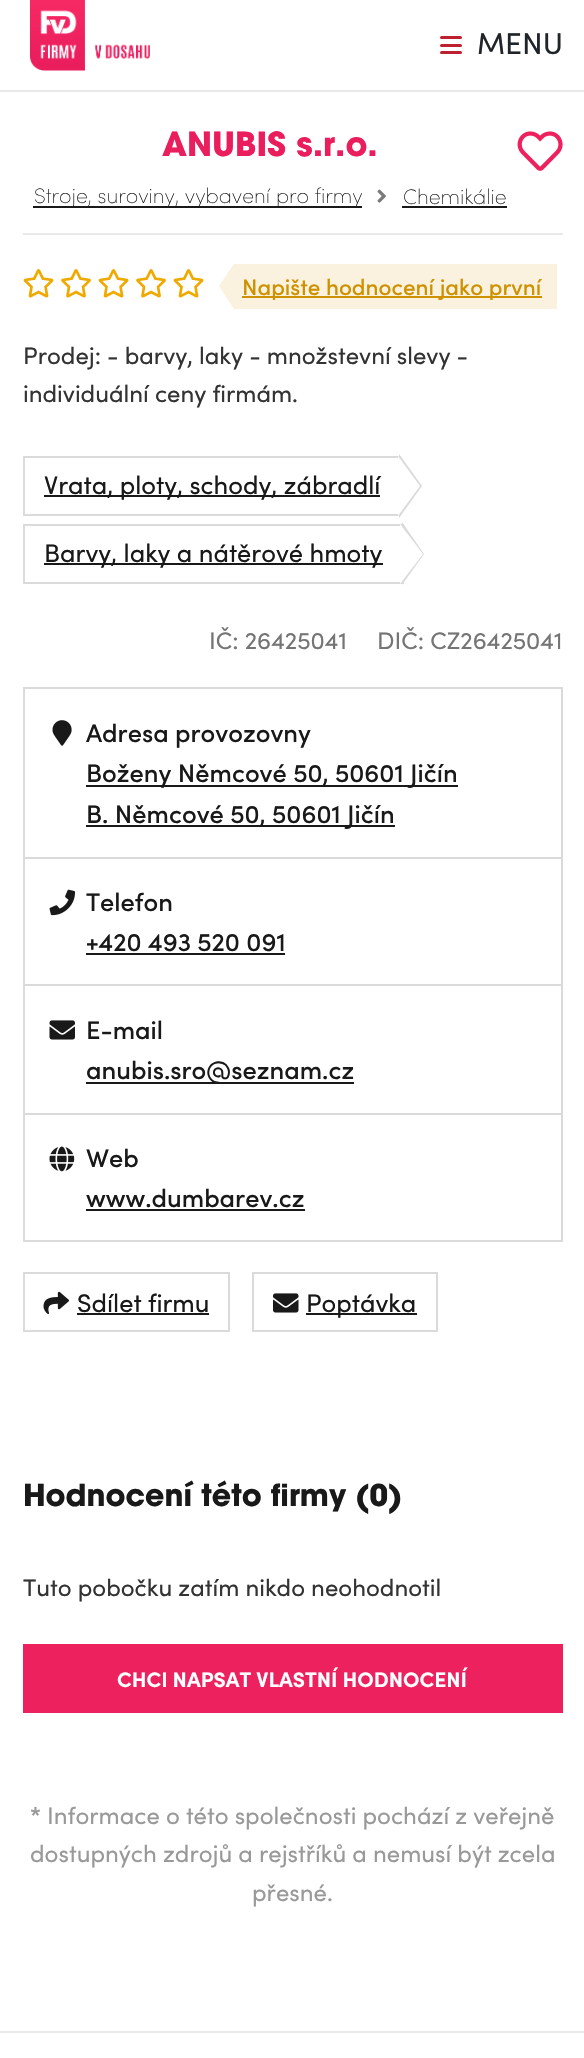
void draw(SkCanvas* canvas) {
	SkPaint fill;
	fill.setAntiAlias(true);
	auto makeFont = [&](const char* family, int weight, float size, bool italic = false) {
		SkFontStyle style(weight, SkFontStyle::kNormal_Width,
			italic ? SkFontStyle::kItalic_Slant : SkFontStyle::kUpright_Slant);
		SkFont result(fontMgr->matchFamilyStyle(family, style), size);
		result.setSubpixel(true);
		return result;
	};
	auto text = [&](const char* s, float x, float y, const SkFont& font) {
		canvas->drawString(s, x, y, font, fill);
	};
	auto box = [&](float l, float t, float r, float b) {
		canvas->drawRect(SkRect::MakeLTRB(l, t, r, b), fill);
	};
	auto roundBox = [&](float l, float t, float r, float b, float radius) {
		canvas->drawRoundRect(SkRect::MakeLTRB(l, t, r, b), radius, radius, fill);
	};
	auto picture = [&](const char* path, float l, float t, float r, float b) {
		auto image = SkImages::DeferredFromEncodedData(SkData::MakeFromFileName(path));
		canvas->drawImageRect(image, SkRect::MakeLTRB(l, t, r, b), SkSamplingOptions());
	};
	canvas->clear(0xFFFFFFFF);
	fill.setColor(0xFFE9E9E9);
	box(0, 90, 584, 92);
	picture("image0.png", 30, 0, 150, 71);
	fill.setColor(0xFFBD2130);
	roundBox(440, 51, 462, 54, 1.5f);
	roundBox(440, 36, 462, 39, 1.5f);
	roundBox(440, 44, 462, 47, 1.5f);
	picture("image1.png", 517, 131, 563, 171);
	fill.setColor(0xFF191919);
	box(33, 206, 362, 208);
	picture("image2.png", 377, 189, 386, 203);
	box(402, 206, 507, 208);
	fill.setColor(0xFFE9E9E9);
	box(23, 233, 563, 235);
	picture("image3.png", 23, 269, 54, 298);
	picture("image4.png", 61, 269, 91, 298);
	picture("image3.png", 98, 269, 129, 298);
	picture("image4.png", 136, 269, 166, 298);
	picture("image3.png", 173, 269, 204, 298);
	fill.setColor(0xFFFAF2DF);
	box(234, 264, 557, 309);
	canvas->drawPath(SkPathBuilder().moveTo(234, 264).lineTo(234, 309).lineTo(219, 286).close().detach(), fill);
	fill.setColor(0xFFCE9200);
	box(242, 296, 542, 298);
	fill.setStyle(SkPaint::kStroke_Style);
	fill.setStrokeWidth(2);
	fill.setColor(0xFFDADADA);
	canvas->drawRect(SkRect::MakeLTRB(24, 457, 400, 515), fill);
	fill.setStyle(SkPaint::kFill_Style);
	canvas->drawPath(SkPathBuilder().moveTo(399, 518).lineTo(399, 454).lineTo(422, 486).close().detach(), fill);
	fill.setColor(0xFF191919);
	box(44, 495, 380, 497);
	fill.setColor(0xFFFFFFFF);
	canvas->drawPath(SkPathBuilder().moveTo(398, 516).lineTo(398, 456).lineTo(420, 486).close().detach(), fill);
	fill.setStyle(SkPaint::kStroke_Style);
	fill.setColor(0xFFDADADA);
	canvas->drawRect(SkRect::MakeLTRB(24, 525, 403, 583), fill);
	fill.setStyle(SkPaint::kFill_Style);
	canvas->drawPath(SkPathBuilder().moveTo(402, 585).lineTo(402, 522).lineTo(424, 554).close().detach(), fill);
	fill.setColor(0xFF191919);
	box(44, 563, 383, 565);
	fill.setColor(0xFFFFFFFF);
	canvas->drawPath(SkPathBuilder().moveTo(400, 584).lineTo(400, 524).lineTo(423, 554).close().detach(), fill);
	fill.setStyle(SkPaint::kStroke_Style);
	fill.setColor(0xFFDADADA);
	canvas->drawRect(SkRect::MakeLTRB(24, 688, 562, 1241), fill);
	fill.setStyle(SkPaint::kFill_Style);
	box(24, 857, 561, 859);
	picture("image5.png", 52, 720, 72, 746);
	fill.setColor(0xFF191919);
	box(86, 785, 458, 787);
	box(86, 825, 395, 827);
	fill.setColor(0xFFDADADA);
	box(24, 984, 561, 986);
	picture("image6.png", 49, 889, 76, 916);
	fill.setColor(0xFF191919);
	box(86, 953, 285, 955);
	fill.setColor(0xFFDADADA);
	box(24, 1113, 561, 1115);
	picture("image7.png", 49, 1020, 75, 1040);
	fill.setColor(0xFF191919);
	box(86, 1082, 354, 1084);
	picture("image8.png", 49, 1146, 75, 1172);
	box(86, 1209, 305, 1211);
	fill.setStyle(SkPaint::kStroke_Style);
	fill.setColor(0xFFDADADA);
	canvas->drawRect(SkRect::MakeLTRB(24, 1273, 229, 1331), fill);
	picture("image9.png", 43, 1291, 69, 1315);
	fill.setStyle(SkPaint::kFill_Style);
	fill.setColor(0xFF191919);
	box(77, 1313, 209, 1315);
	fill.setStyle(SkPaint::kStroke_Style);
	fill.setColor(0xFFDADADA);
	canvas->drawRect(SkRect::MakeLTRB(253, 1273, 437, 1331), fill);
	picture("image10.png", 273, 1293, 299, 1313);
	fill.setStyle(SkPaint::kFill_Style);
	fill.setColor(0xFF191919);
	box(306, 1313, 417, 1315);
	fill.setColor(0xFFEE215F);
	box(23, 1644, 563, 1713);
	fill.setColor(0xFFE9E9E9);
	box(0, 2031, 584, 2033);
	auto font1 = makeFont("Sofia", 400, 30);
	fill.setColor(0xFF212529);
	text("MENU", 477, 54, font1);
	auto font2 = makeFont("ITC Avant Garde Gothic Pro", 700, 33);
	fill.setColor(0xFFEA1D5D);
	text("ANUBIS s.r.o.", 162, 156, font2);
	auto font3 = makeFont("Sofia", 200, 21);
	fill.setColor(0xFF191919);
	text("Stroje, suroviny, vybavení pro firmy", 34, 203, font3);
	text("Chemikálie", 403, 204, font3);
	auto font4 = makeFont("Sofia", 500, 22.5f);
	fill.setColor(0xFFCE9200);
	text("Napište hodnocení jako první", 242, 295, font4);
	auto font5 = makeFont("Sofia", 400, 24);
	fill.setColor(0xFF333333);
	text("Prodej: - barvy, laky - množstevní slevy -", 23, 364, font5);
	text("individuální ceny firmám.", 23, 402, font5);
	auto font6 = makeFont("Sofia", 400, 25.5f);
	fill.setColor(0xFF191919);
	text("Vrata, ploty, schody, zábradlí", 44, 494, font6);
	text("Barvy, laky a nátěrové hmoty", 44, 562, font6);
	fill.setColor(0xFF757575);
	text("IČ: 26425041", 209, 649, font5);
	text("DIČ: CZ26425041", 377, 649, font5);
	auto font7 = makeFont("Sofia", 500, 25.5f);
	fill.setColor(0xFF191919);
	text("Adresa provozovny", 86, 742, font7);
	text("Boženy Němcové 50, 50601 Jičín", 86, 782, font7);
	text("B. Němcové 50, 50601 Jičín", 86, 823, font7);
	text("Telefon", 86, 911, font7);
	text("+420 493 520 091", 86, 951, font7);
	text("E-mail", 86, 1039, font7);
	text("anubis.sro@seznam.cz", 86, 1079, font7);
	text("Web", 86, 1167, font7);
	text("www.dumbarev.cz", 86, 1207, font7);
	text("Sdílet firmu", 77, 1312, font6);
	text("Poptávka", 306, 1312, font6);
	auto font8 = makeFont("ITC Avant Garde Gothic Pro", 700, 30);
	text("Hodnocení této firmy (0)", 23, 1506, font8);
	fill.setColor(0xFF333333);
	text("Tuto pobočku zatím nikdo neohodnotil", 23, 1596, font5);
	auto font9 = makeFont("Sofia", 700, 21);
	fill.setColor(0xFFFFFFFF);
	text("CHCI NAPSAT VLASTNÍ HODNOCENÍ", 117, 1687, font9);
	auto font10 = makeFont("Sofia", 700, 24);
	fill.setColor(0xFF999999);
	text("*", 30, 1824, font10);
	text("Informace o této společnosti pochází z veřejně", 47, 1824, font5);
	text("dostupných zdrojů a rejstříků a nemusí být zcela", 30, 1862, font5);
	text("přesné.", 252, 1901, font5);
}
